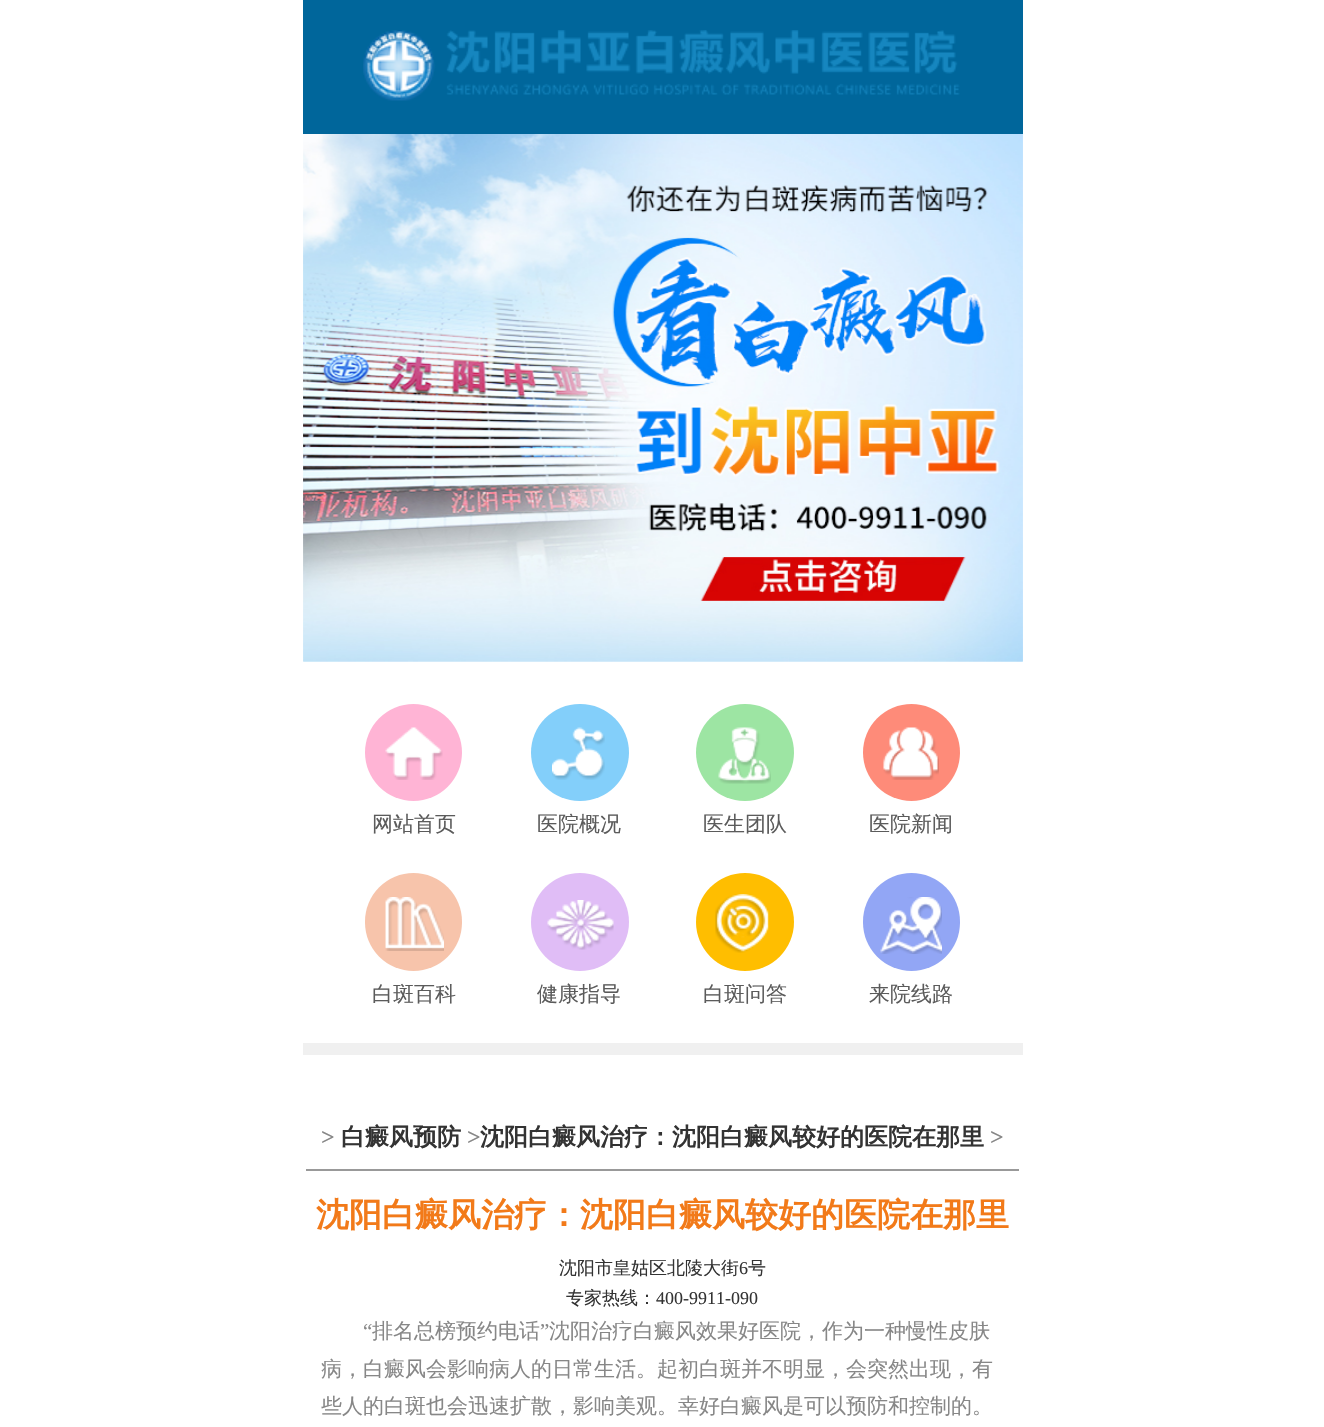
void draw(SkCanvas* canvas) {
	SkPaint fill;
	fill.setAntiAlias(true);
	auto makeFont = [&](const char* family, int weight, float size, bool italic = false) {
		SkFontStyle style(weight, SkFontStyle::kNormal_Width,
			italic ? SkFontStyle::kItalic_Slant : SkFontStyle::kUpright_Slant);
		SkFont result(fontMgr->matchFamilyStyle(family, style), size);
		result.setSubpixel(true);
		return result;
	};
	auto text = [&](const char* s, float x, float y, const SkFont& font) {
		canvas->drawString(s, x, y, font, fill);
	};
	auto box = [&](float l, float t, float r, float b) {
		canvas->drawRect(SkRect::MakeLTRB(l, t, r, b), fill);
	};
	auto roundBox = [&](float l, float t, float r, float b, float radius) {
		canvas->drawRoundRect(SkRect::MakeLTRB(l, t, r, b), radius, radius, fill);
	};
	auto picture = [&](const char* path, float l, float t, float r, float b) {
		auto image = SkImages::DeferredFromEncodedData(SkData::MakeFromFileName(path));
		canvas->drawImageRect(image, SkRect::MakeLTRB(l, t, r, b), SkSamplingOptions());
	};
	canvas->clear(0xFFFFFFFF);
	fill.setColor(0xFF00669B);
	box(303, 0, 1023, 134);
	picture("image0.png", 363, 30, 960, 101);
	picture("image1.png", 303, 134, 1023, 662);
	picture("image2.png", 303, 134, 1023, 662);
	fill.setColor(0xFFFFB4D5);
	canvas->drawCircle(413.5f, 752.5f, 48.5f, fill);
	picture("image3.png", 385, 727, 443, 780);
	fill.setColor(0xFF83CFFA);
	roundBox(531, 704, 629, 801, 48.5f);
	picture("image4.png", 552, 727, 605, 780);
	fill.setColor(0xFF9DE5A3);
	roundBox(696, 704, 794, 801, 48.5f);
	picture("image5.png", 718, 727, 771, 784);
	fill.setColor(0xFFFE8B79);
	canvas->drawCircle(911.5f, 752.5f, 48.5f, fill);
	picture("image6.png", 883, 727, 939, 780);
	fill.setColor(0xFFF7C4AB);
	roundBox(365, 873, 462, 971, 48.5f);
	picture("image7.png", 385, 897, 444, 951);
	fill.setColor(0xFFE0BDF6);
	canvas->drawCircle(580, 922, 49, fill);
	picture("image8.png", 547, 900, 614, 950);
	fill.setColor(0xFFFFBE00);
	canvas->drawCircle(745, 922, 49, fill);
	picture("image9.png", 715, 894, 769, 953);
	fill.setColor(0xFF92A6F5);
	roundBox(863, 873, 960, 971, 48.5f);
	picture("image10.png", 880, 897, 942, 954);
	fill.setColor(0xFFF0F0F0);
	box(303, 1043, 1023, 1055);
	fill.setColor(0xFF999999);
	box(306, 1169, 1019, 1171);
	auto font1 = makeFont("WenQuanYi Zen Hei", 500, 21);
	fill.setColor(0xFF5B5B5B);
	text("网站首页", 372, 831, font1);
	text("医院概况", 537, 831, font1);
	text("医生团队", 703, 831, font1);
	text("医院新闻", 869, 831, font1);
	text("白斑百科", 372, 1001, font1);
	text("健康指导", 537, 1001, font1);
	text("白斑问答", 703, 1001, font1);
	text("来院线路", 869, 1001, font1);
	auto font2 = makeFont("Liberation Serif", 700, 24);
	fill.setColor(0xFF878787);
	text(">", 321, 1145, font2);
	auto font3 = makeFont("WenQuanYi Zen Hei", 700, 24);
	fill.setColor(0xFF333333);
	text("白癜风预防", 341, 1145, font3);
	fill.setColor(0xFF878787);
	text(">", 467, 1145, font2);
	fill.setColor(0xFF333333);
	text("沈阳白癜风治疗：沈阳白癜风较好的医院在那里", 480, 1145, font3);
	fill.setColor(0xFF878787);
	text(">", 990, 1145, font2);
	auto font4 = makeFont("WenQuanYi Zen Hei", 700, 33);
	fill.setColor(0xFFF27A19);
	text("沈阳白癜风治疗：沈阳白癜风较好的医院在那里", 316, 1226, font4);
	auto font5 = makeFont("WenQuanYi Zen Hei", 500, 18);
	fill.setColor(0xFF333333);
	text("沈阳市皇姑区北陵大街", 559, 1274, font5);
	auto font6 = makeFont("Liberation Serif", 400, 18);
	text("6", 739, 1274, font6);
	text("号", 748, 1274, font5);
	text("专家热线：", 566, 1304, font5);
	text("400-9911-090", 656, 1304, font6);
	auto font7 = makeFont("Liberation Serif", 400, 21);
	fill.setColor(0xFF878787);
	text("“", 363, 1338, font7);
	text("排名总榜预约电话", 372, 1338, font1);
	text("”", 540, 1338, font7);
	text("沈阳治疗白癜风效果好医院，作为一种慢性皮肤", 549, 1338, font1);
	text("病，白癜风会影响病人的日常生活。起初白斑并不明显，会突然出现，有", 321, 1376, font1);
	text("些人的白斑也会迅速扩散，影响美观。幸好白癜风是可以预防和控制的。", 321, 1413, font1);
}
